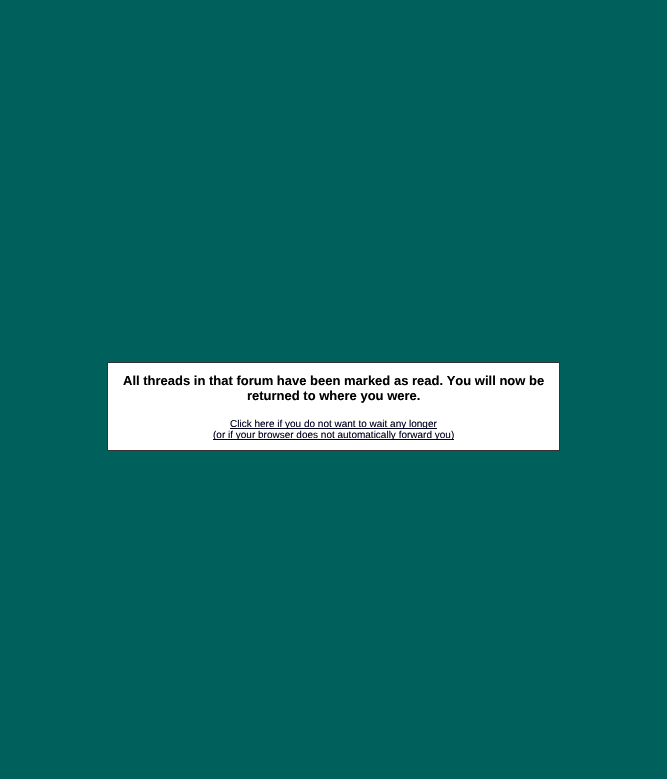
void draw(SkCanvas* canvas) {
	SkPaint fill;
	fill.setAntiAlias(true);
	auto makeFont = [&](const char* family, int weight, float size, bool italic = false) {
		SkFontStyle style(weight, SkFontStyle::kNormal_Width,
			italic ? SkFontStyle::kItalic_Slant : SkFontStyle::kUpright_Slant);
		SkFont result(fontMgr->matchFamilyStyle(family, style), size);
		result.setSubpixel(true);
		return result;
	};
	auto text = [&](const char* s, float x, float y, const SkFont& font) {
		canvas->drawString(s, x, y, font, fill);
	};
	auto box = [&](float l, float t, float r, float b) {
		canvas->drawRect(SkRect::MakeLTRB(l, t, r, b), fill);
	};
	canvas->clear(0xFF00605B);
	fill.setColor(0xFF333333);
	box(107, 362, 560, 451);
	fill.setColor(0xFFFFFFFF);
	box(108, 363, 559, 450);
	fill.setColor(0xFF000020);
	box(230, 428, 437, 429);
	box(213, 439, 454, 440);
	auto font1 = makeFont("Liberation Sans", 700, 13);
	fill.setColor(0xFF000000);
	text("All threads in that forum have been marked as read. You will now be", 123, 385, font1);
	text("returned to where you were.", 247, 400, font1);
	auto font2 = makeFont("Liberation Sans", 400, 10);
	fill.setColor(0xFF000020);
	text("Click here if you do not want to wait any longer", 230, 427, font2);
	text("(or if your browser does not automatically forward you)", 213, 438, font2);
}
